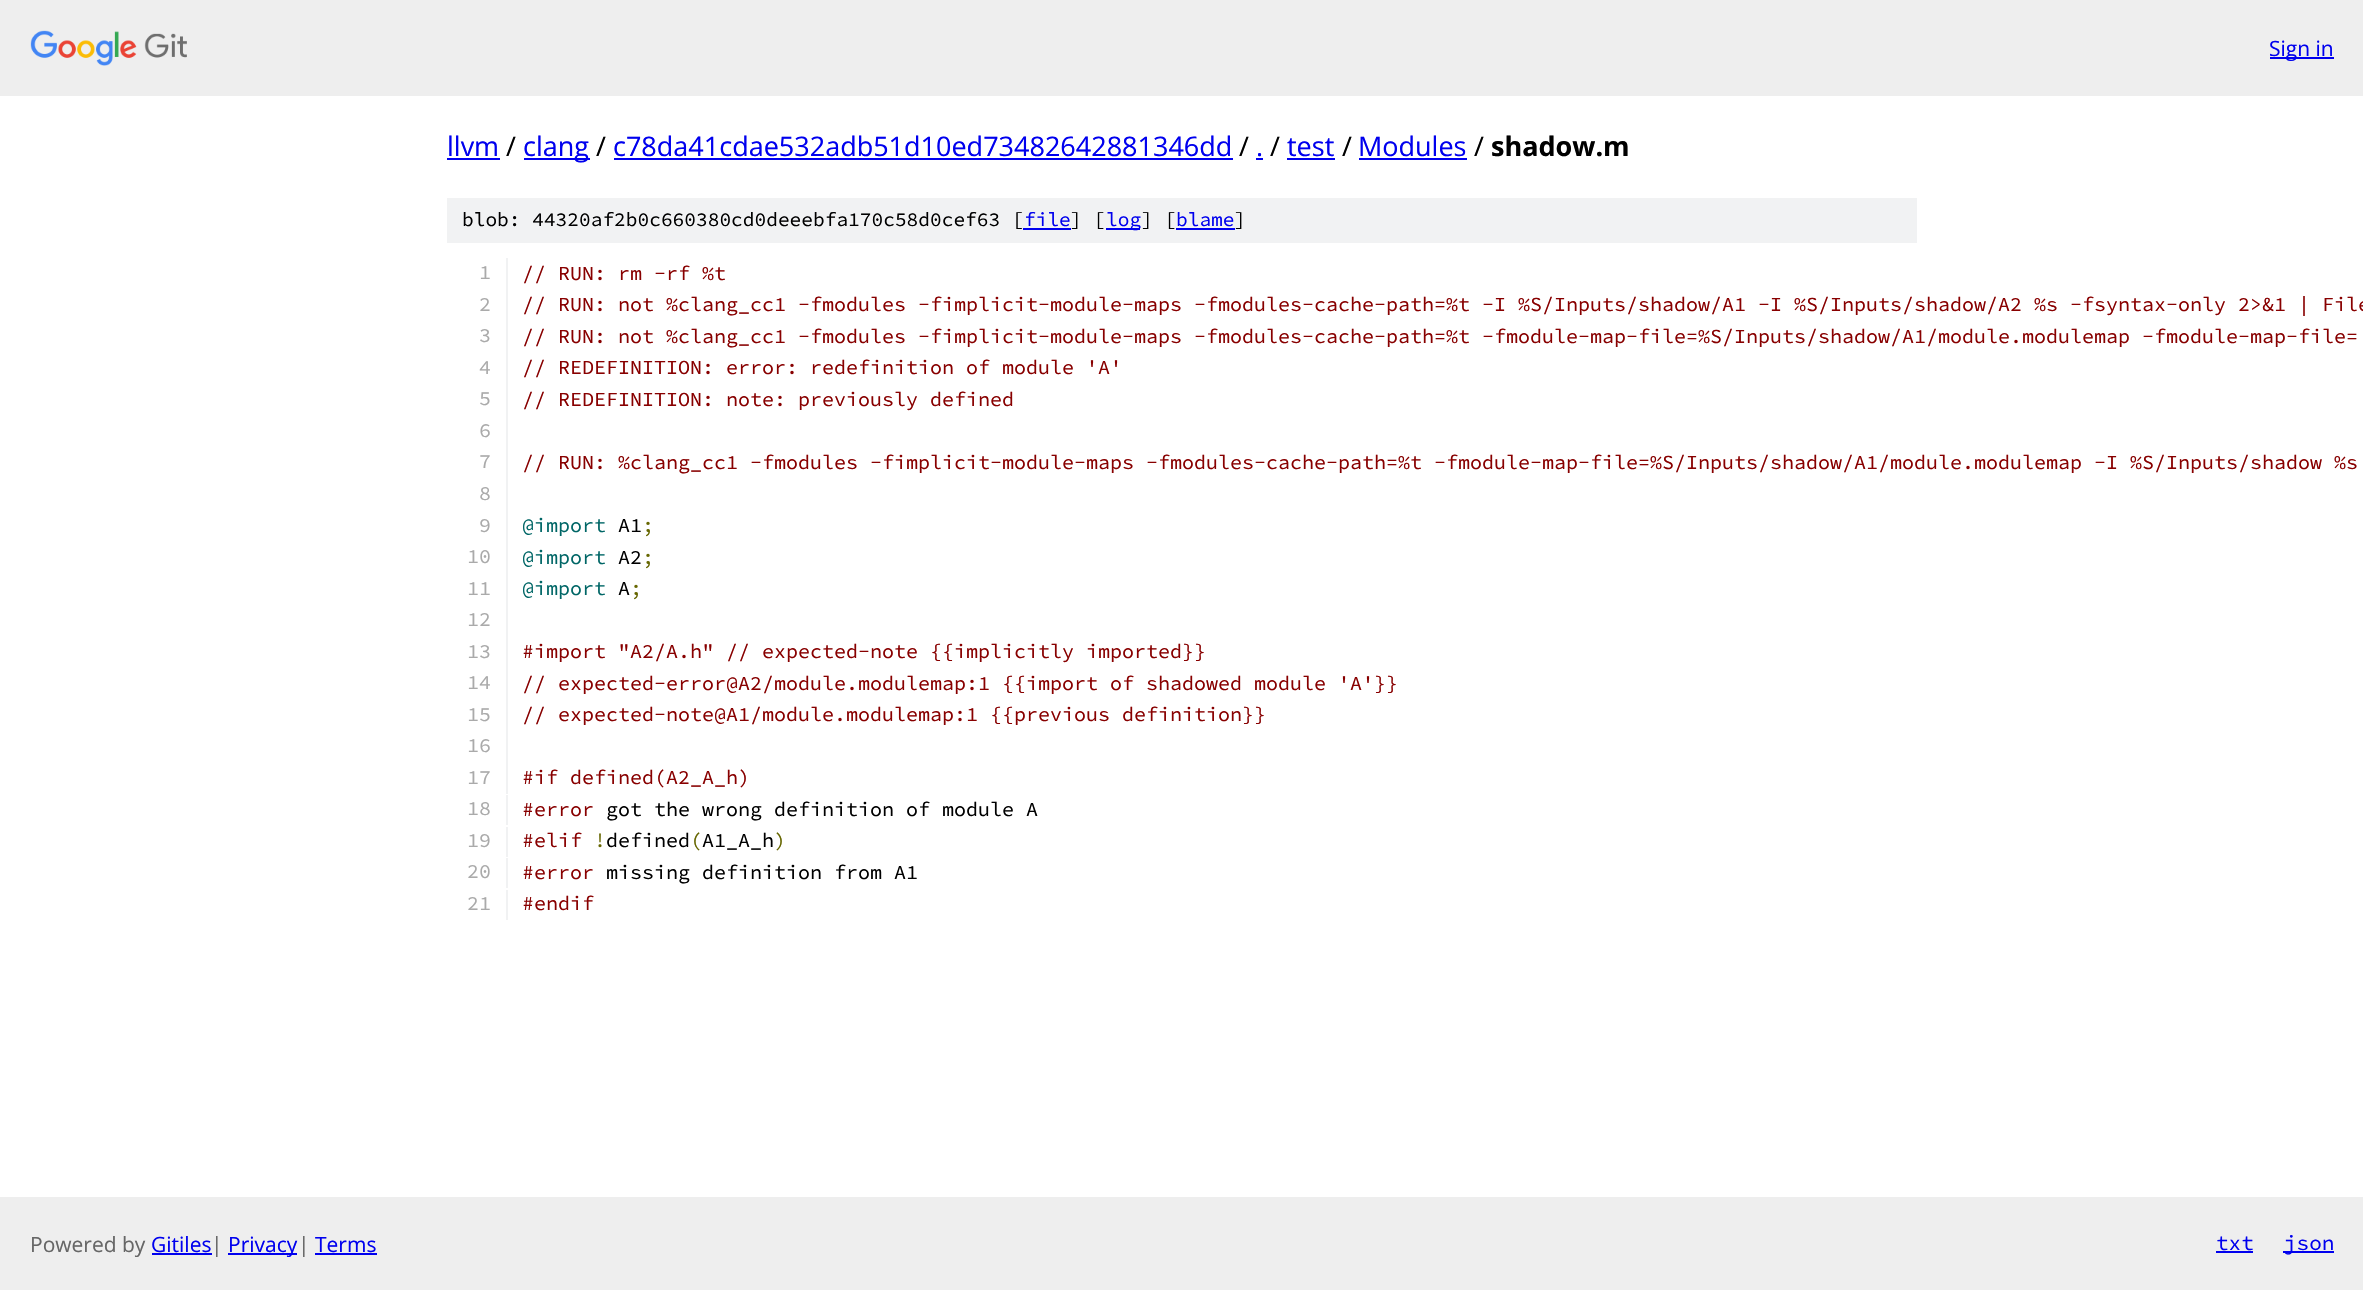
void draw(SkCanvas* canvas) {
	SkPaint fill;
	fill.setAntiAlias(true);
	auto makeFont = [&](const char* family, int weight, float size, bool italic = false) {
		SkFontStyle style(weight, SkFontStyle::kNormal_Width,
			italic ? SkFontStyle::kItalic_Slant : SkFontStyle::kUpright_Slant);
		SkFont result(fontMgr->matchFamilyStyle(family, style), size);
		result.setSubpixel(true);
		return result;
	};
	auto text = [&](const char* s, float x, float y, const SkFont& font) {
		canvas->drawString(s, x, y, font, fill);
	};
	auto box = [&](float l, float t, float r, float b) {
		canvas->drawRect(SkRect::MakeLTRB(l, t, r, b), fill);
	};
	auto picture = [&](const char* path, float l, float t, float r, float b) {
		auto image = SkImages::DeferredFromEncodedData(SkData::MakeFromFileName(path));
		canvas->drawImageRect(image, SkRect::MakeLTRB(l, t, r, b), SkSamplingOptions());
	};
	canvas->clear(0xFFFFFFFF);
	fill.setColor(0xFFEEEEEE);
	box(0, 0, 2363, 96);
	picture("image0.png", 30, 30, 187, 66);
	fill.setColor(0xFF0000EE);
	box(2270, 57, 2334, 59);
	box(447, 158, 500, 160);
	box(524, 158, 590, 160);
	box(614, 158, 1233, 160);
	box(1256, 158, 1263, 160);
	box(1287, 158, 1335, 160);
	box(1359, 158, 1467, 160);
	fill.setColor(0xFFF1F2F3);
	box(447, 198, 1917, 243);
	fill.setColor(0xFF0000EE);
	box(1023, 228, 1071, 230);
	box(1106, 228, 1140, 230);
	box(1176, 228, 1235, 230);
	fill.setColor(0xFFF1F2F3);
	box(506, 258, 508, 794);
	box(506, 795, 508, 825);
	box(506, 827, 508, 857);
	box(506, 858, 508, 888);
	box(506, 890, 508, 920);
	fill.setColor(0xFFEEEEEE);
	box(0, 1197, 2363, 1290);
	fill.setColor(0xFF0000EE);
	box(152, 1253, 212, 1255);
	box(228, 1253, 297, 1255);
	box(315, 1253, 377, 1255);
	box(2216, 1251, 2253, 1253);
	box(2283, 1251, 2334, 1253);
	auto font1 = makeFont("Open Sans", 400, 21);
	text("Sign in", 2269, 56, font1);
	auto font2 = makeFont("Open Sans", 400, 27);
	text("llvm", 447, 156, font2);
	fill.setColor(0xFF000000);
	text("/", 506, 156, font2);
	fill.setColor(0xFF0000EE);
	text("clang", 523, 156, font2);
	fill.setColor(0xFF000000);
	text("/", 596, 156, font2);
	fill.setColor(0xFF0000EE);
	text("c78da41cdae532adb51d10ed73482642881346dd", 613, 156, font2);
	fill.setColor(0xFF000000);
	text("/", 1239, 156, font2);
	fill.setColor(0xFF0000EE);
	text(".", 1256, 156, font2);
	fill.setColor(0xFF000000);
	text("/", 1270, 156, font2);
	fill.setColor(0xFF0000EE);
	text("test", 1287, 156, font2);
	fill.setColor(0xFF000000);
	text("/", 1342, 156, font2);
	fill.setColor(0xFF0000EE);
	text("Modules", 1358, 156, font2);
	fill.setColor(0xFF000000);
	text("/", 1474, 156, font2);
	auto font3 = makeFont("Open Sans", 700, 27);
	text("shadow.m", 1491, 156, font3);
	auto font4 = makeFont("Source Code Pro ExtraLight", 200, 19.5f);
	text("blob: 44320af2b0c660380cd0deeebfa170c58d0cef63 [", 462, 226, font4);
	fill.setColor(0xFF0000EE);
	text("file", 1024, 226, font4);
	fill.setColor(0xFF000000);
	text("] [", 1070, 226, font4);
	fill.setColor(0xFF0000EE);
	text("log", 1106, 226, font4);
	fill.setColor(0xFF000000);
	text("] [", 1141, 226, font4);
	fill.setColor(0xFF0000EE);
	text("blame", 1176, 226, font4);
	fill.setColor(0xFF000000);
	text("]", 1234, 226, font4);
	auto font5 = makeFont("Source Code Pro ExtraLight", 200, 20);
	fill.setColor(0xFFAAAAAA);
	text("1", 479, 279, font5);
	fill.setColor(0xFF880000);
	text("// RUN: rm -rf %t", 522, 280, font5);
	fill.setColor(0xFFAAAAAA);
	text("2", 479, 311, font5);
	fill.setColor(0xFF880000);
	text("// RUN: not %clang_cc1 -fmodules -fimplicit-module-maps -fmodules-cache-path=%t -I %S/Inputs/shadow/A1 -I %S/Inputs/shadow/A2 %s -fsyntax-only 2>&1 | File", 522, 311, font5);
	fill.setColor(0xFFAAAAAA);
	text("3", 479, 342, font5);
	fill.setColor(0xFF880000);
	text("// RUN: not %clang_cc1 -fmodules -fimplicit-module-maps -fmodules-cache-path=%t -fmodule-map-file=%S/Inputs/shadow/A1/module.modulemap -fmodule-map-file=", 522, 343, font5);
	fill.setColor(0xFFAAAAAA);
	text("4", 479, 374, font5);
	fill.setColor(0xFF880000);
	text("// REDEFINITION: error: redefinition of module 'A'", 522, 374, font5);
	fill.setColor(0xFFAAAAAA);
	text("5", 479, 405, font5);
	fill.setColor(0xFF880000);
	text("// REDEFINITION: note: previously defined", 522, 406, font5);
	fill.setColor(0xFFAAAAAA);
	text("6", 479, 437, font5);
	text("7", 479, 468, font5);
	fill.setColor(0xFF880000);
	text("// RUN: %clang_cc1 -fmodules -fimplicit-module-maps -fmodules-cache-path=%t -fmodule-map-file=%S/Inputs/shadow/A1/module.modulemap -I %S/Inputs/shadow %s", 522, 469, font5);
	fill.setColor(0xFFAAAAAA);
	text("8", 479, 500, font5);
	text("9", 479, 532, font5);
	fill.setColor(0xFF006666);
	text("@import", 522, 532, font5);
	fill.setColor(0xFF000000);
	text("A1", 618, 532, font5);
	fill.setColor(0xFF666600);
	text(";", 642, 532, font5);
	fill.setColor(0xFFAAAAAA);
	text("10", 467, 563, font5);
	fill.setColor(0xFF006666);
	text("@import", 522, 564, font5);
	fill.setColor(0xFF000000);
	text("A2", 618, 564, font5);
	fill.setColor(0xFF666600);
	text(";", 642, 564, font5);
	fill.setColor(0xFFAAAAAA);
	text("11", 467, 595, font5);
	fill.setColor(0xFF006666);
	text("@import", 522, 595, font5);
	fill.setColor(0xFF000000);
	text("A", 618, 595, font5);
	fill.setColor(0xFF666600);
	text(";", 630, 595, font5);
	fill.setColor(0xFFAAAAAA);
	text("12", 467, 626, font5);
	text("13", 467, 658, font5);
	fill.setColor(0xFF880000);
	text("#import \"A2/A.h\" // expected-note {{implicitly imported}}", 522, 658, font5);
	fill.setColor(0xFFAAAAAA);
	text("14", 467, 689, font5);
	fill.setColor(0xFF880000);
	text("// expected-error@A2/module.modulemap:1 {{import of shadowed module 'A'}}", 522, 690, font5);
	fill.setColor(0xFFAAAAAA);
	text("15", 467, 721, font5);
	fill.setColor(0xFF880000);
	text("// expected-note@A1/module.modulemap:1 {{previous definition}}", 522, 721, font5);
	fill.setColor(0xFFAAAAAA);
	text("16", 467, 752, font5);
	text("17", 467, 784, font5);
	fill.setColor(0xFF880000);
	text("#if defined(A2_A_h)", 522, 784, font5);
	fill.setColor(0xFFAAAAAA);
	text("18", 467, 815, font5);
	fill.setColor(0xFF880000);
	text("#error", 522, 816, font5);
	fill.setColor(0xFF000000);
	text("got the wrong definition of module A", 606, 816, font5);
	fill.setColor(0xFFAAAAAA);
	text("19", 467, 847, font5);
	fill.setColor(0xFF880000);
	text("#elif", 522, 847, font5);
	fill.setColor(0xFF000000);
	text("defined A1_A_h", 606, 847, font5);
	fill.setColor(0xFF666600);
	text("!", 594, 847, font5);
	text("(", 690, 847, font5);
	text(")", 774, 847, font5);
	fill.setColor(0xFFAAAAAA);
	text("20", 467, 878, font5);
	fill.setColor(0xFF880000);
	text("#error", 522, 879, font5);
	fill.setColor(0xFF000000);
	text("missing definition from A1", 606, 879, font5);
	fill.setColor(0xFFAAAAAA);
	text("21", 467, 910, font5);
	fill.setColor(0xFF880000);
	text("#endif", 522, 910, font5);
	fill.setColor(0xFF666666);
	text("Powered by", 30, 1252, font1);
	fill.setColor(0xFF0000EE);
	text("Gitiles", 151, 1252, font1);
	fill.setColor(0xFF666666);
	text("|", 211, 1252, font1);
	fill.setColor(0xFF0000EE);
	text("Privacy", 228, 1252, font1);
	fill.setColor(0xFF666666);
	text("|", 298, 1252, font1);
	fill.setColor(0xFF0000EE);
	text("Terms", 315, 1252, font1);
	auto font6 = makeFont("Source Code Pro ExtraLight", 200, 21);
	text("txt", 2216, 1250, font6);
	text("json", 2284, 1250, font6);
}
